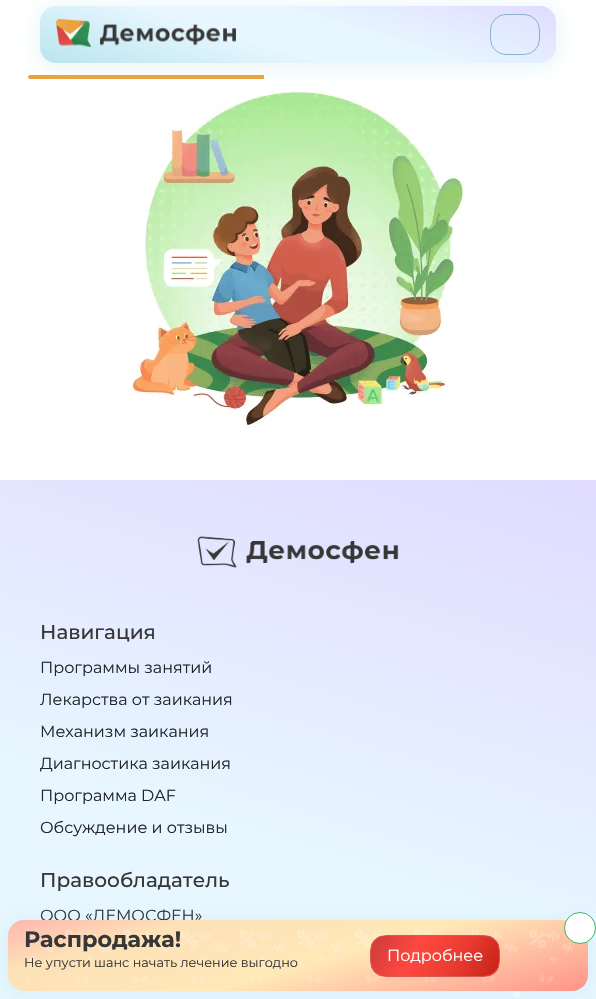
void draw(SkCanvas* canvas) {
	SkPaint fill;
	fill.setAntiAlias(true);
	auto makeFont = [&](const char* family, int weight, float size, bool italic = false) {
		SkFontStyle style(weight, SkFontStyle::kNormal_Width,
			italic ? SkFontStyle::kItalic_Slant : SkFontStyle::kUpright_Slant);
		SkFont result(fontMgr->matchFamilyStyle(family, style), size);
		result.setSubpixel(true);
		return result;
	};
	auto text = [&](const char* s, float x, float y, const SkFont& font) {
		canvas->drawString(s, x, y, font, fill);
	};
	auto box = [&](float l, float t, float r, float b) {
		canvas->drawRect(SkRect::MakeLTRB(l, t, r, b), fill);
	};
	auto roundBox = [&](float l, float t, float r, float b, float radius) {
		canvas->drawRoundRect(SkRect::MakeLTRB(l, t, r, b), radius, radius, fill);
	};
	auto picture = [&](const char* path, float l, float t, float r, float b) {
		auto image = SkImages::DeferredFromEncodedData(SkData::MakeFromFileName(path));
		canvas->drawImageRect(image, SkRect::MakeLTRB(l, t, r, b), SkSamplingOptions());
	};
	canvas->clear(0xFFFFFFFF);
	picture("image1.png", 131, 91, 465, 428);
	fill.setColor(0x40B8E3EC);
	fill.setMaskFilter(SkMaskFilter::MakeBlur(kNormal_SkBlurStyle, 9));
	canvas->drawRoundRect(SkRect::MakeLTRB(35, 4, 561, 71), 21, 21, fill);
	fill.setMaskFilter(nullptr);
	{
		const SkColor colors[] = {0xFFB9E5ED, 0xFFE7F6FF, 0xFFE7F6FF, 0xFFE0DBFF};
		const float stops[] = {0, 0.4f, 0.6f, 1};
		const SkPoint ends[] = {{268, 133}, {328, -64}};
		fill.setShader(SkGradientShader::MakeLinear(ends, colors, stops, 4, SkTileMode::kClamp));
		fill.setAlpha(255);
	}
	roundBox(40, 6, 556, 63, 16);
	picture("image0.png", 56, 19, 236, 47);
	fill.setShader(nullptr);
	fill.setColor(0x33E0F4FD);
	roundBox(490, 14, 540, 55, 16);
	fill.setStyle(SkPaint::kStroke_Style);
	fill.setStrokeWidth(1);
	fill.setColor(0x944B84AF);
	canvas->drawRoundRect(SkRect::MakeLTRB(490.5f, 14.5f, 539.5f, 54.5f), 15.5f, 15.5f, fill);
	fill.setStyle(SkPaint::kFill_Style);
	fill.setColor(0xFFE9A23E);
	canvas->drawPath(SkPathBuilder().moveTo(30, 75).lineTo(264, 75).lineTo(264, 79).lineTo(30, 79).cubicTo(29, 79, 28, 78, 28, 77).cubicTo(28, 76, 29, 75, 30, 75).close().detach(), fill);
	{
		const SkColor colors[] = {0xFFB9E5ED, 0xFFE7F6FF, 0xFFE7F6FF, 0xFFE0DBFF};
		const float stops[] = {0, 0.4f, 0.6f, 1};
		const SkPoint ends[] = {{137, 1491}, {459, 438}};
		fill.setShader(SkGradientShader::MakeLinear(ends, colors, stops, 4, SkTileMode::kClamp));
		fill.setAlpha(255);
	}
	box(0, 480, 596, 999);
	picture("image2.png", 197, 536, 399, 568);
	fill.setShader(nullptr);
	fill.setColor(0xFFF5FBFF);
	box(513, 983, 520, 997);
	fill.setColor(0x40B8E3EC);
	fill.setMaskFilter(SkMaskFilter::MakeBlur(kNormal_SkBlurStyle, 9));
	canvas->drawRoundRect(SkRect::MakeLTRB(3, 918, 593, 999), 21, 21, fill);
	fill.setMaskFilter(nullptr);
	auto font1 = makeFont("Montserrat", 100, 20);
	fill.setColor(0xFF373737);
	text("Навигация", 40, 639, font1);
	auto font2 = makeFont("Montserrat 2", 100, 16);
	fill.setColor(0xFF212529);
	text("Программы занятий", 40, 673, font2);
	text("Лекарства от заикания", 40, 705, font2);
	text("Механизм заикания", 40, 737, font2);
	text("Диагностика заикания", 40, 769, font2);
	text("Программа DAF", 40, 801, font2);
	text("Обсуждение и отзывы", 40, 833, font2);
	fill.setColor(0xFF373737);
	text("Правообладатель", 40, 887, font1);
	text("ООО «ДЕМОСФЕН»", 40, 921, font2);
	{
		const SkColor colors[] = {0xFFFFB5AE, 0xFFFDE1B7, 0xFFFFE8B8, 0xFFFF9288};
		const float stops[] = {0, 0.22f, 0.55f, 1};
		const SkPoint ends[] = {{267, 846}, {329, 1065}};
		fill.setShader(SkGradientShader::MakeLinear(ends, colors, stops, 4, SkTileMode::kClamp));
		fill.setAlpha(255);
	}
	roundBox(8, 920, 588, 991, 16);
	picture("image3.png", 25, 929, 572, 983);
	auto font3 = makeFont("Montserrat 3", 100, 22.25f);
	fill.setShader(nullptr);
	fill.setColor(0xFF373737);
	text("Распродажа!", 24, 947, font3);
	auto font4 = makeFont("Montserrat 2", 100, 12.8f);
	text("Не упусти шанс начать лечение выгодно", 24, 967, font4);
	canvas->save();
	canvas->clipPath(SkPathBuilder().moveTo(386, 935).lineTo(484, 935).cubicTo(493, 935, 500, 942, 500, 951).lineTo(500, 961).cubicTo(500, 970, 493, 977, 484, 977).lineTo(386, 977).cubicTo(377, 977, 370, 970, 370, 961).lineTo(370, 951).cubicTo(370, 942, 377, 935, 386, 935).close().detach(), true);
	{
		const SkColor colors[] = {0xFFCB3B3B, 0xFFFF483F, 0xFFEB3C33, 0xFFC52016};
		const float stops[] = {0, 0.35f, 0.65f, 1};
		const SkPoint ends[] = {{378, 923}, {492, 989}};
		fill.setShader(SkGradientShader::MakeLinear(ends, colors, stops, 4, SkTileMode::kClamp));
		fill.setAlpha(255);
	}
	box(371, 936, 499, 976);
	canvas->restore();
	fill.setStyle(SkPaint::kStroke_Style);
	fill.setShader(nullptr);
	fill.setColor(0xFFE0554E);
	canvas->drawRoundRect(SkRect::MakeLTRB(370.5f, 935.5f, 499.5f, 976.5f), 15.5f, 15.5f, fill);
	fill.setStyle(SkPaint::kFill_Style);
	fill.setColor(0xFFFFFFFF);
	text("Подробнее", 387, 961, font2);
	canvas->drawCircle(580, 928, 15.5f, fill);
	fill.setStyle(SkPaint::kStroke_Style);
	fill.setColor(0xFF3CB365);
	canvas->drawCircle(580, 928, 15.5f, fill);
}
